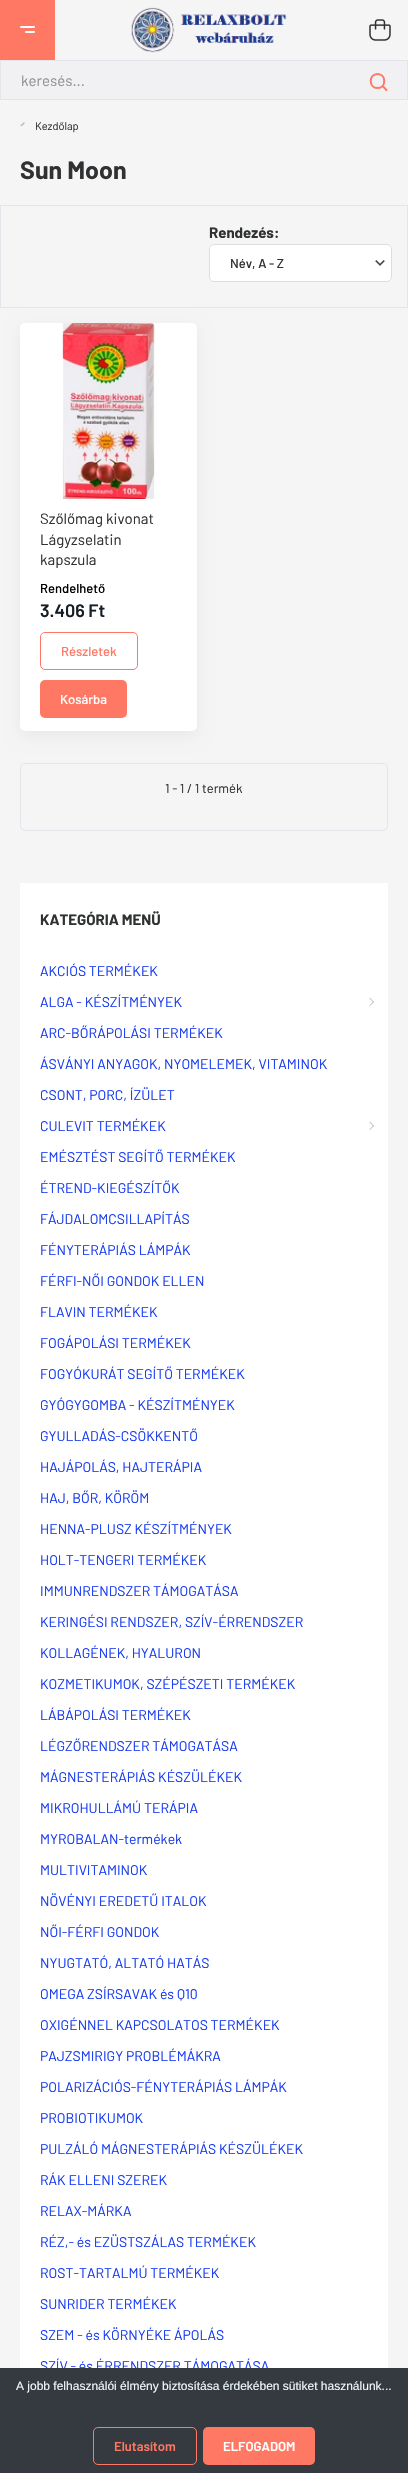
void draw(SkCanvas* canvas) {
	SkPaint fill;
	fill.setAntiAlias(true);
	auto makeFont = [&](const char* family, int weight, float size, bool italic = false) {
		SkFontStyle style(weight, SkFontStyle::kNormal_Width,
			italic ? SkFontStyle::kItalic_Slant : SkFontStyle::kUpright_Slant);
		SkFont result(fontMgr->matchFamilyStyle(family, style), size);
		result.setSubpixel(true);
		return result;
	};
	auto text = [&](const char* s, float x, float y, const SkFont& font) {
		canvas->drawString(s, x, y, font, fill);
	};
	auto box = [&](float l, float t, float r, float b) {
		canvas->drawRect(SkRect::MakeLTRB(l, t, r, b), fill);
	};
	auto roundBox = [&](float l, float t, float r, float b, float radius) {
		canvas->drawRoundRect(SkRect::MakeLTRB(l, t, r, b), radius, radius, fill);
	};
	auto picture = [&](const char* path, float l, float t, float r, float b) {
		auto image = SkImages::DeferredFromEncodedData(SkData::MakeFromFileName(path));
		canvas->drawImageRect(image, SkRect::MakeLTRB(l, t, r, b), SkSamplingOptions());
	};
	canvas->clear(0xFFF5F5F5);
	fill.setColor(0xFFFF7864);
	box(0, 0, 55, 60);
	fill.setColor(0xFFFFFFFF);
	roundBox(20, 26, 35, 28, 1);
	roundBox(25, 31, 35, 33, 1);
	picture("image0.png", 131, 7, 287, 53);
	picture("image1.png", 369, 19, 391, 41);
	fill.setColor(0xFFF1F1F4);
	canvas->drawRect(SkRect::MakeLTRB(0.5f, 60.5f, 407.5f, 99.5f), fill);
	fill.setStyle(SkPaint::kStroke_Style);
	fill.setStrokeWidth(1);
	fill.setColor(0xFFE4E4EA);
	canvas->drawRect(SkRect::MakeLTRB(0.5f, 60.5f, 407.5f, 99.5f), fill);
	fill.setStrokeWidth(2);
	fill.setStrokeCap(SkPaint::kRound_Cap);
	fill.setStrokeJoin(SkPaint::kRound_Join);
	fill.setColor(0xFFFF7864);
	canvas->drawPath(SkPathBuilder().moveTo(386.5f, 90).lineTo(382.5f, 86).moveTo(377.5f, 88).cubicTo(368.5f, 88, 368.5f, 74, 377.5f, 74).cubicTo(386.5f, 74, 386.5f, 88, 377.5f, 88).close().detach(), fill);
	picture("image2.png", 20, 122, 25, 126);
	fill.setStrokeWidth(1);
	fill.setStrokeCap(SkPaint::kButt_Cap);
	fill.setStrokeJoin(SkPaint::kMiter_Join);
	fill.setColor(0xFFE4E4EA);
	canvas->drawRect(SkRect::MakeLTRB(0.5f, 205.5f, 407.5f, 307.5f), fill);
	fill.setStyle(SkPaint::kFill_Style);
	fill.setColor(0xFFFFFFFF);
	roundBox(209, 244, 392, 282, 5);
	picture("image3.png", 375, 260, 385, 266);
	fill.setStyle(SkPaint::kStroke_Style);
	fill.setColor(0xFFDDDDE1);
	canvas->drawRoundRect(SkRect::MakeLTRB(209.5f, 244.5f, 391.5f, 281.5f), 4.5f, 4.5f, fill);
	fill.setStyle(SkPaint::kFill_Style);
	fill.setColor(0x0D000000);
	fill.setMaskFilter(SkMaskFilter::MakeBlur(kNormal_SkBlurStyle, 7.5f));
	canvas->drawRoundRect(SkRect::MakeLTRB(20, 328, 197, 736), 5, 5, fill);
	fill.setMaskFilter(nullptr);
	fill.setColor(0xFFFFFFFF);
	roundBox(20, 323, 197, 731, 5);
	roundBox(20, 323, 197, 499, 5);
	picture("image4.png", 57, 323, 155, 499);
	fill.setStyle(SkPaint::kStroke_Style);
	fill.setColor(0xFFFF7864);
	canvas->drawRoundRect(SkRect::MakeLTRB(40.5f, 632.5f, 137.5f, 669.5f), 4.5f, 4.5f, fill);
	fill.setStyle(SkPaint::kFill_Style);
	roundBox(40, 680, 127, 718, 5);
	fill.setStyle(SkPaint::kStroke_Style);
	fill.setColor(0xFFE4E4EA);
	canvas->drawRoundRect(SkRect::MakeLTRB(20.5f, 763.5f, 387.5f, 830.5f), 4.5f, 4.5f, fill);
	fill.setStyle(SkPaint::kFill_Style);
	fill.setColor(0xFFFFFFFF);
	box(20, 883, 388, 2368);
	fill.setColor(0xFFC1C1C2);
	canvas->drawPath(SkPathBuilder().moveTo(369.5f, 998.5f).lineTo(370, 997.5f).lineTo(374, 1002).lineTo(373.5f, 1002.5f).close().detach(), fill);
	canvas->drawPath(SkPathBuilder().moveTo(369.5f, 1005.5f).lineTo(373.5f, 1001).lineTo(374, 1002).lineTo(370, 1006).close().detach(), fill);
	canvas->drawPath(SkPathBuilder().moveTo(369.5f, 1122.5f).lineTo(370, 1121.5f).lineTo(374, 1126).lineTo(373.5f, 1126.5f).close().detach(), fill);
	canvas->drawPath(SkPathBuilder().moveTo(369.5f, 1129.5f).lineTo(373.5f, 1125).lineTo(374, 1126).lineTo(370, 1130).close().detach(), fill);
	auto font1 = makeFont("Barlow", 400, 15);
	fill.setColor(0xFF909193);
	text("keresés...", 21, 86, font1);
	auto font2 = makeFont("Barlow", 400, 11);
	fill.setColor(0xFF2F3132);
	text("Kezdőlap", 35, 130, font2);
	auto font3 = makeFont("Barlow", 700, 25);
	text("Sun Moon", 20, 179, font3);
	auto font4 = makeFont("Barlow", 700, 15);
	text("Rendezés:", 209, 238, font4);
	auto font5 = makeFont("Barlow", 500, 13);
	text("Név, A - Z", 230, 268, font5);
	text("Szőlőmag kivonat", 40, 524, font1);
	text("Lágyzselatin", 40, 545, font1);
	text("kapszula", 40, 565, font1);
	fill.setColor(0xFF000000);
	text("Rendelhető", 40, 593, font5);
	auto font6 = makeFont("Barlow", 600, 18);
	fill.setColor(0xFF151E26);
	text("3.406 Ft", 40, 617, font6);
	fill.setColor(0xFFFF7864);
	text("Részletek", 61, 656, font5);
	fill.setColor(0xFFFFFFFF);
	text("Kosárba", 60, 704, font5);
	auto font7 = makeFont("Barlow", 400, 13);
	fill.setColor(0xFF2F3132);
	text("1 - 1 / 1 termék", 165, 793, font7);
	text("KATEGÓRIA MENÜ", 40, 925, font4);
	auto font8 = makeFont("Barlow", 400, 14);
	fill.setColor(0xFF183CF0);
	text("AKCIÓS TERMÉKEK", 40, 976, font8);
	text("ALGA - KÉSZÍTMÉNYEK", 40, 1007, font8);
	text("ARC-BŐRÁPOLÁSI TERMÉKEK", 40, 1038, font8);
	text("ÁSVÁNYI ANYAGOK, NYOMELEMEK, VITAMINOK", 40, 1069, font8);
	text("CSONT, PORC, ÍZÜLET", 40, 1100, font8);
	text("CULEVIT TERMÉKEK", 40, 1131, font8);
	text("EMÉSZTÉST SEGÍTŐ TERMÉKEK", 40, 1162, font8);
	text("ÉTREND-KIEGÉSZÍTŐK", 40, 1193, font8);
	text("FÁJDALOMCSILLAPÍTÁS", 40, 1224, font8);
	text("FÉNYTERÁPIÁS LÁMPÁK", 40, 1255, font8);
	text("FÉRFI-NŐI GONDOK ELLEN", 40, 1286, font8);
	text("FLAVIN TERMÉKEK", 40, 1317, font8);
	text("FOGÁPOLÁSI TERMÉKEK", 40, 1348, font8);
	text("FOGYÓKURÁT SEGÍTŐ TERMÉKEK", 40, 1379, font8);
	text("GYÓGYGOMBA - KÉSZÍTMÉNYEK", 40, 1410, font8);
	text("GYULLADÁS-CSÖKKENTŐ", 40, 1441, font8);
	text("HAJÁPOLÁS, HAJTERÁPIA", 40, 1472, font8);
	text("HAJ, BŐR, KÖRÖM", 40, 1503, font8);
	text("HENNA-PLUSZ KÉSZÍTMÉNYEK", 40, 1534, font8);
	text("HOLT-TENGERI TERMÉKEK", 40, 1565, font8);
	text("IMMUNRENDSZER TÁMOGATÁSA", 40, 1596, font8);
	text("KERINGÉSI RENDSZER, SZÍV-ÉRRENDSZER", 40, 1627, font8);
	text("KOLLAGÉNEK, HYALURON", 40, 1658, font8);
	text("KOZMETIKUMOK, SZÉPÉSZETI TERMÉKEK", 40, 1689, font8);
	text("LÁBÁPOLÁSI TERMÉKEK", 40, 1720, font8);
	text("LÉGZŐRENDSZER TÁMOGATÁSA", 40, 1751, font8);
	text("MÁGNESTERÁPIÁS KÉSZÜLÉKEK", 40, 1782, font8);
	text("MIKROHULLÁMÚ TERÁPIA", 40, 1813, font8);
	text("MYROBALAN-termékek", 40, 1844, font8);
	text("MULTIVITAMINOK", 40, 1875, font8);
	text("NÖVÉNYI EREDETŰ ITALOK", 40, 1906, font8);
	text("NŐI-FÉRFI GONDOK", 40, 1937, font8);
	text("NYUGTATÓ, ALTATÓ HATÁS", 40, 1968, font8);
	text("OMEGA ZSÍRSAVAK és Q10", 40, 1999, font8);
	text("OXIGÉNNEL KAPCSOLATOS TERMÉKEK", 40, 2030, font8);
	text("PAJZSMIRIGY PROBLÉMÁKRA", 40, 2061, font8);
	text("POLARIZÁCIÓS-FÉNYTERÁPIÁS LÁMPÁK", 40, 2092, font8);
	text("PROBIOTIKUMOK", 40, 2123, font8);
	text("PULZÁLÓ MÁGNESTERÁPIÁS KÉSZÜLÉKEK", 40, 2154, font8);
	text("RÁK ELLENI SZEREK", 40, 2185, font8);
	text("RELAX-MÁRKA", 40, 2216, font8);
	text("RÉZ,- és EZÜSTSZÁLAS TERMÉKEK", 40, 2247, font8);
	text("ROST-TARTALMÚ TERMÉKEK", 40, 2278, font8);
	text("SUNRIDER TERMÉKEK", 40, 2309, font8);
	text("SZEM - és KÖRNYÉKE ÁPOLÁS", 40, 2340, font8);
	text("SZÍV - és ÉRRENDSZER TÁMOGATÁSA", 40, 2371, font8);
	fill.setColor(0xFF343A40);
	box(0, 2368, 408, 2473);
	auto font9 = makeFont("Liberation Sans", 400, 12);
	fill.setColor(0xFFF0F8FF);
	text("A jobb felhasználói élmény biztosítása érdekében sütiket használunk...", 16, 2390, font9);
	fill.setStyle(SkPaint::kStroke_Style);
	fill.setColor(0xFFFF7864);
	canvas->drawRoundRect(SkRect::MakeLTRB(93.5f, 2427.5f, 196.5f, 2464.5f), 4.5f, 4.5f, fill);
	auto font10 = makeFont("Barlow", 600, 13);
	fill.setStyle(SkPaint::kFill_Style);
	text("Elutasítom", 114, 2451, font10);
	roundBox(203, 2427, 315, 2465, 5);
	fill.setColor(0xFFFFFFFF);
	text("ELFOGADOM", 223, 2451, font10);
}
